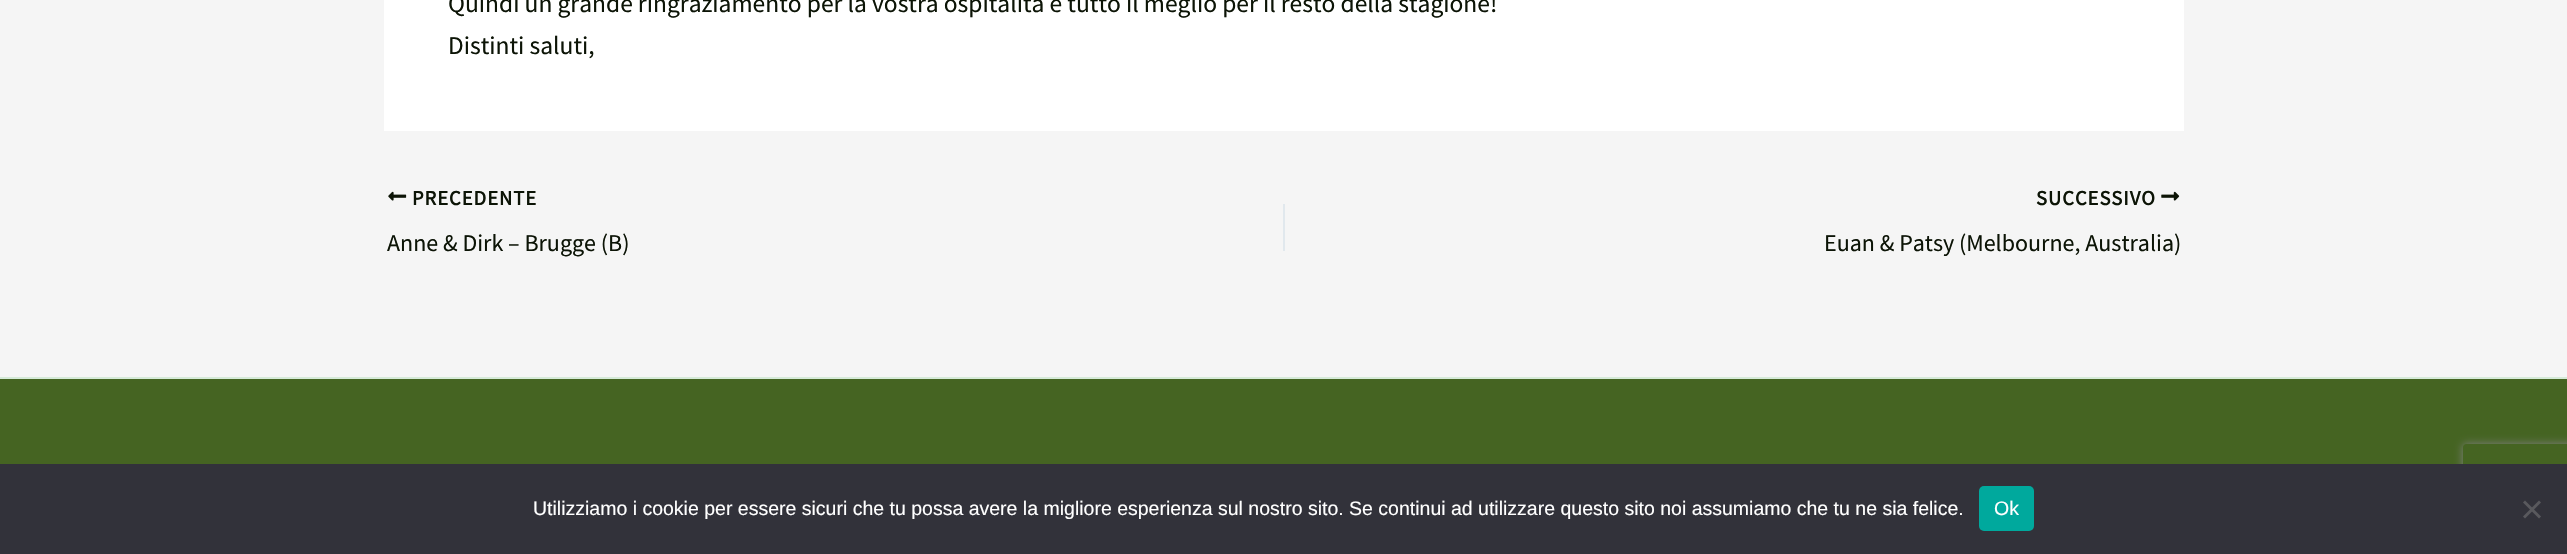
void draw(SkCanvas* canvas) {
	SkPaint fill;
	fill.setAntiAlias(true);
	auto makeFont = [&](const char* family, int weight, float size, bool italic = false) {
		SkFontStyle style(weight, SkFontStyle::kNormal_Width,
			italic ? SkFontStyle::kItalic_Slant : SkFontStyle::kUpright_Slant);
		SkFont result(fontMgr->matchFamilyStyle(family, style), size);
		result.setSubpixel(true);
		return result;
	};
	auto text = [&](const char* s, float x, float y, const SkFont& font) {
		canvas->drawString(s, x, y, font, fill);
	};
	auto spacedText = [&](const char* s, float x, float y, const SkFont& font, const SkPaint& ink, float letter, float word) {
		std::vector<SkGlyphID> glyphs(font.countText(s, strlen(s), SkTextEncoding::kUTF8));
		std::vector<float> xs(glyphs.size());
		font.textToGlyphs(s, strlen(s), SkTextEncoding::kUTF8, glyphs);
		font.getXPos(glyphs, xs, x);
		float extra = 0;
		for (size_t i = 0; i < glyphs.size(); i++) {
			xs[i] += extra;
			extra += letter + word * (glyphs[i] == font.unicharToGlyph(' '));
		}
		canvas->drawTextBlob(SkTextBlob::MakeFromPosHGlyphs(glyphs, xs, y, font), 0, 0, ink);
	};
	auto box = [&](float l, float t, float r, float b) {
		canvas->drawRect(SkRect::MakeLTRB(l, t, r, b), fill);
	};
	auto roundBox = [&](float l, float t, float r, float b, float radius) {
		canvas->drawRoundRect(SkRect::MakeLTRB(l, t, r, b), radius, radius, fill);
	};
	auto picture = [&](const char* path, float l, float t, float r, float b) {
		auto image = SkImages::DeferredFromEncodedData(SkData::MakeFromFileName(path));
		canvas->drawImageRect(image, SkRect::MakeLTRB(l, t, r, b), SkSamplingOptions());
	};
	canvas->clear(0xFFF5F5F5);
	fill.setColor(0xFFFFFFFF);
	box(384, 0, 2184, 131);
	picture("image0.png", 388, 191, 407, 201);
	fill.setColor(0xFFE1E8ED);
	box(1283, 204, 1285, 251);
	picture("image1.png", 2161, 191, 2180, 201);
	fill.setColor(0xFF456422);
	box(0, 379, 2567, 464);
	fill.setColor(0xFFD5EAD8);
	box(0, 377, 2567, 379);
	canvas->save();
	canvas->clipPath(SkPathBuilder(SkPathFillType::kEvenOdd).moveTo(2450, 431).lineTo(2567, 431).lineTo(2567, 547).lineTo(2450, 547).close().moveTo(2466, 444).lineTo(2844, 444).cubicTo(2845.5f, 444, 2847, 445.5f, 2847, 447).lineTo(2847, 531).cubicTo(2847, 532.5f, 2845.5f, 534, 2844, 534).lineTo(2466, 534).cubicTo(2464.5f, 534, 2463, 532.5f, 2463, 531).lineTo(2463, 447).cubicTo(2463, 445.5f, 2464.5f, 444, 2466, 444).close().detach(), true);
	fill.setColor(0xFF808080);
	fill.setMaskFilter(SkMaskFilter::MakeBlur(kNormal_SkBlurStyle, 4));
	canvas->drawRoundRect(SkRect::MakeLTRB(2463, 444, 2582, 534), 3, 3, fill);
	fill.setMaskFilter(nullptr);
	canvas->restore();
	fill.setColor(0xFF32323A);
	box(0, 464, 2567, 554);
	fill.setColor(0xFF00A99D);
	roundBox(1979, 486, 2034, 531, 5);
	fill.setColor(0xFF59595D);
	canvas->drawPath(SkPathBuilder().moveTo(2539, 500.5f).lineTo(2541, 502.5f).lineTo(2525, 518.5f).lineTo(2523, 516.5f).close().detach(), fill);
	canvas->drawPath(SkPathBuilder().moveTo(2523, 502.5f).lineTo(2525, 500.5f).lineTo(2541, 516.5f).lineTo(2539, 518.5f).close().detach(), fill);
	auto font1 = makeFont("Source Sans Pro", 400, 25.5f);
	fill.setColor(0xFF0C1406);
	text("Quindi un grande ringraziamento per la vostra ospitalità e tutto il meglio per il resto della stagione!", 448, 12, font1);
	text("Distinti saluti,", 448, 54, font1);
	auto font2 = makeFont("Source Sans Pro", 700, 20.5f);
	spacedText("PRECEDENTE", 412, 205, font2, fill, 1, 0);
	auto font3 = makeFont("Source Sans Pro", 400, 24);
	text("Anne & Dirk – Brugge (B)", 387, 251, font3);
	spacedText("SUCCESSIVO", 2036, 205, font2, fill, 1, 0);
	text("Euan & Patsy (Melbourne, Australia)", 1824, 251, font3);
	auto font4 = makeFont("Liberation Sans", 400, 19.5f);
	fill.setColor(0xFFFFFFFF);
	text("Utilizziamo i cookie per essere sicuri che tu possa avere la migliore esperienza sul nostro sito. Se continui ad utilizzare questo sito noi assumiamo che tu ne sia felice.", 533, 515, font4);
	text("Ok", 1994, 515, font4);
}
